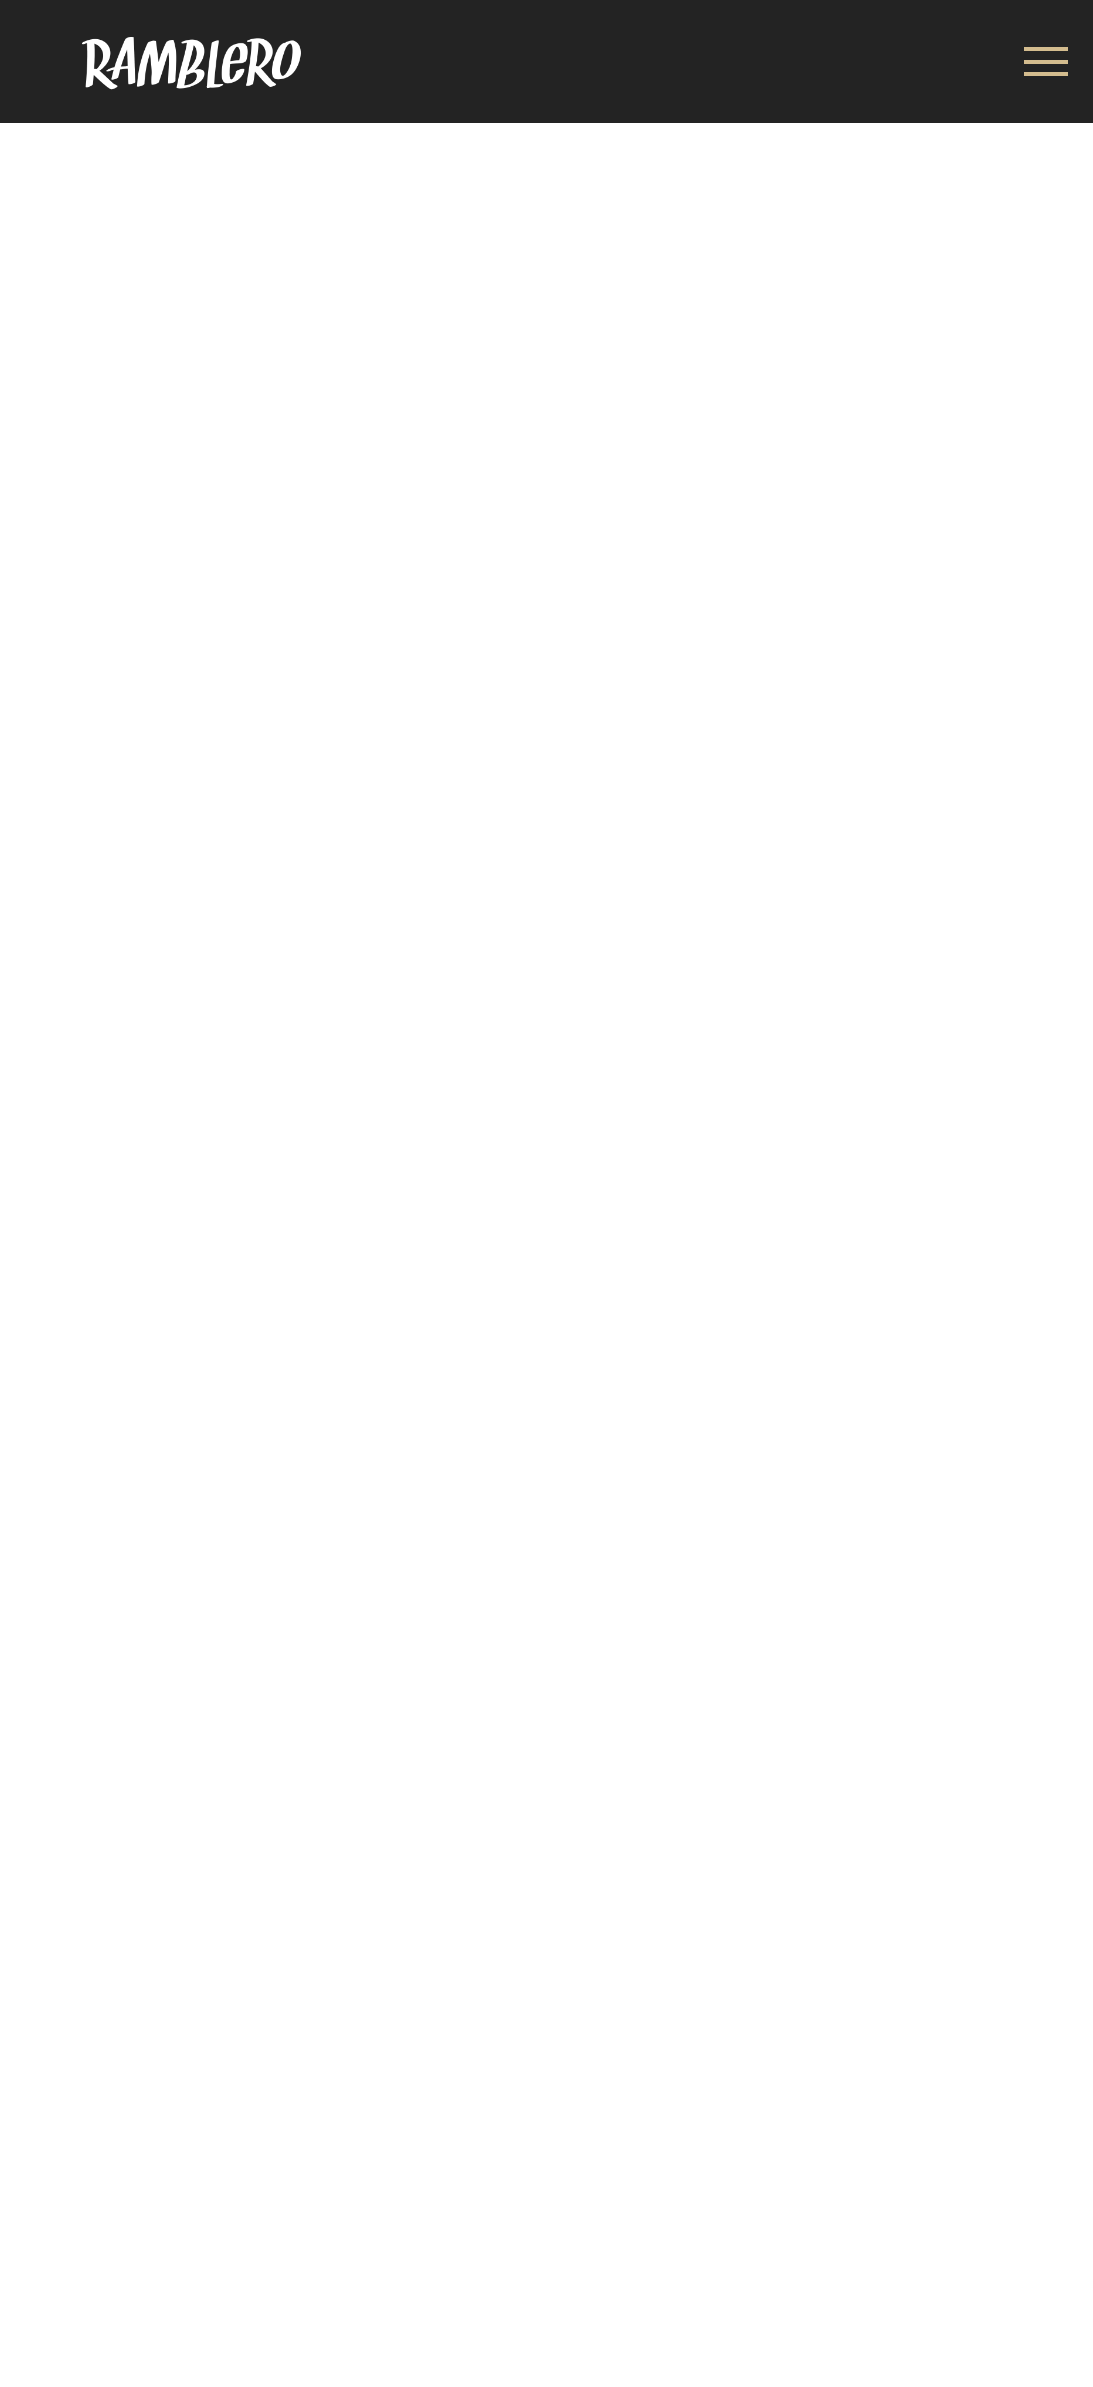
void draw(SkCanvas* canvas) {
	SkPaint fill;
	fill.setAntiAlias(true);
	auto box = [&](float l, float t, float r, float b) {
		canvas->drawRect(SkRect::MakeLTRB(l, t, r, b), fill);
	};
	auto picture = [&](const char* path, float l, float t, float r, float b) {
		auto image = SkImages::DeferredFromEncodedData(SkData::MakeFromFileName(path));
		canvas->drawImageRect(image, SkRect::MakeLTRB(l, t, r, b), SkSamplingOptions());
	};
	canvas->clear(0xFFFFFFFF);
	fill.setColor(0xFF232323);
	box(0, 0, 1093, 123);
	picture("image0.png", 82, 37, 301, 90);
	fill.setColor(0xFFD3BC8E);
	box(1024, 47, 1068, 51);
	box(1024, 60, 1068, 64);
	box(1024, 72, 1068, 76);
}
